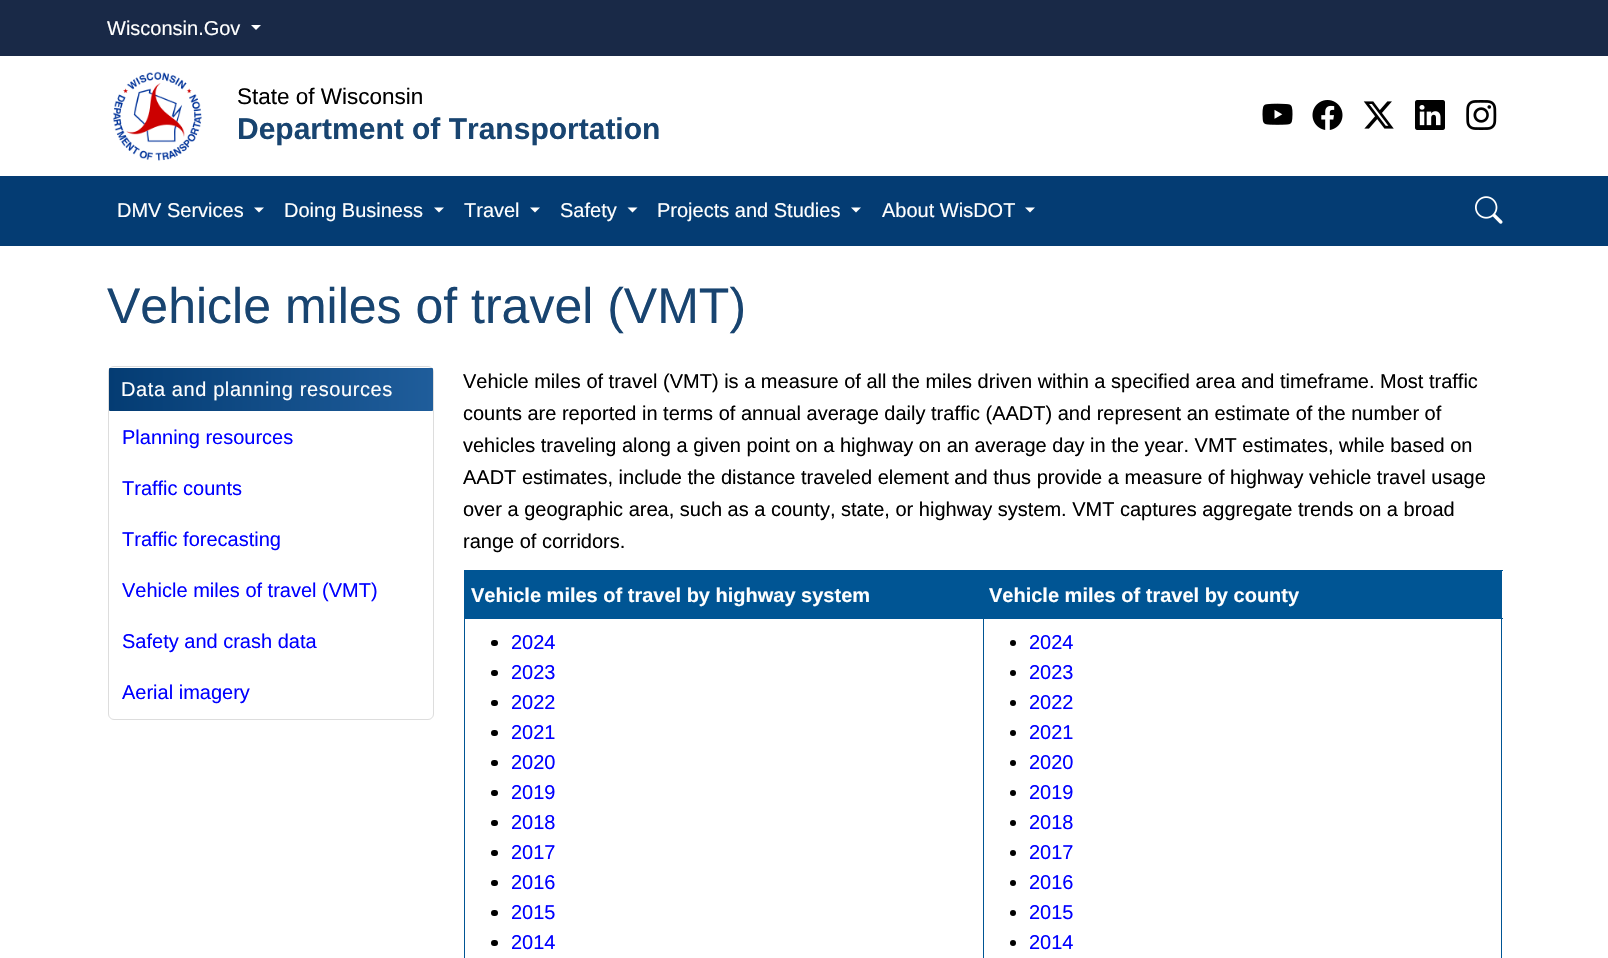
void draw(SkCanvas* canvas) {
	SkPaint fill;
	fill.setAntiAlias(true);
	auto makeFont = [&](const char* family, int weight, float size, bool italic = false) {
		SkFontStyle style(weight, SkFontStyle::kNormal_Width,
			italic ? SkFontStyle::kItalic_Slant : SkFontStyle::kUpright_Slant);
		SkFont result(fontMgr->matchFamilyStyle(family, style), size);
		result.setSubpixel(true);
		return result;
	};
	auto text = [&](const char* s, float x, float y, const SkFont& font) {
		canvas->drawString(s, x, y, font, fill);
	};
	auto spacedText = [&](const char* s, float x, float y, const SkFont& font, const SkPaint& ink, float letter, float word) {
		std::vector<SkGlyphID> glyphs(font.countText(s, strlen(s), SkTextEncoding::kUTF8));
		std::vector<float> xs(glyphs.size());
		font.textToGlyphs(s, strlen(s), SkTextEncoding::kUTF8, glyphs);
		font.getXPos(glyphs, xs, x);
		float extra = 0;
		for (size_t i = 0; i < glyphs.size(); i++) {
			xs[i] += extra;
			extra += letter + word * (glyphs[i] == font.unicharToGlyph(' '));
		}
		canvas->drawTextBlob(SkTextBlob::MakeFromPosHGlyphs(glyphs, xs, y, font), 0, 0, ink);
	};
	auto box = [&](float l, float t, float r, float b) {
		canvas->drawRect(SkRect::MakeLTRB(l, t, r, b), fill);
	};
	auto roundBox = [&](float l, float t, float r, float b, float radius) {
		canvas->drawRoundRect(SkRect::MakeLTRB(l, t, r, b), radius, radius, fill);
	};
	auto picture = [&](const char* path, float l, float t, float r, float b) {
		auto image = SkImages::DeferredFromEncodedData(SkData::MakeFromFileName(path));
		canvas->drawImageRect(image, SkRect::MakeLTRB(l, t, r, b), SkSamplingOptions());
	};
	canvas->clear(0xFFFFFFFF);
	fill.setColor(0xFF192947);
	box(0, 0, 1608, 56);
	fill.setColor(0xFFFFFFFF);
	canvas->drawPath(SkPathBuilder().moveTo(251, 25).lineTo(261, 25).lineTo(256, 30).close().detach(), fill);
	picture("image0.png", 113, 71, 202, 161);
	picture("image1.png", 1262, 103, 1293, 125);
	picture("image2.png", 1312, 100, 1343, 130);
	picture("image3.png", 1363, 101, 1394, 129);
	picture("image4.png", 1415, 100, 1445, 130);
	picture("image5.png", 1466, 100, 1497, 130);
	fill.setColor(0xFF043C73);
	box(0, 176, 1608, 246);
	fill.setColor(0xFFFFFFFF);
	canvas->drawPath(SkPathBuilder().moveTo(254, 207.5f).lineTo(264, 207.5f).lineTo(259, 212.5f).close().detach(), fill);
	canvas->drawPath(SkPathBuilder().moveTo(434, 207.5f).lineTo(444, 207.5f).lineTo(439, 212.5f).close().detach(), fill);
	canvas->drawPath(SkPathBuilder().moveTo(530, 207.5f).lineTo(540, 207.5f).lineTo(535, 212.5f).close().detach(), fill);
	canvas->drawPath(SkPathBuilder().moveTo(627.5f, 207.5f).lineTo(637.5f, 207.5f).lineTo(632.5f, 212.5f).close().detach(), fill);
	canvas->drawPath(SkPathBuilder().moveTo(851, 207.5f).lineTo(861, 207.5f).lineTo(856, 212.5f).close().detach(), fill);
	canvas->drawPath(SkPathBuilder().moveTo(1025, 207.5f).lineTo(1035, 207.5f).lineTo(1030, 212.5f).close().detach(), fill);
	picture("image6.png", 1475, 196, 1503, 224);
	fill.setStyle(SkPaint::kStroke_Style);
	fill.setStrokeWidth(1);
	fill.setColor(0xFFDDDDDD);
	canvas->drawRoundRect(SkRect::MakeLTRB(108.5f, 366.5f, 433.5f, 719.5f), 5.5f, 5.5f, fill);
	fill.setStyle(SkPaint::kFill_Style);
	{
		const SkColor colors[] = {0xFF043C73, 0xFF1F5D9B};
		const float stops[] = {0, 1};
		const SkPoint ends[] = {{109, 389}, {433, 389}};
		fill.setShader(SkGradientShader::MakeLinear(ends, colors, stops, 2, SkTileMode::kClamp));
		fill.setAlpha(255);
	}
	roundBox(109, 368, 433, 411, 1);
	fill.setShader(nullptr);
	fill.setColor(0xFF005594);
	box(464, 570, 1503, 571);
	box(1501, 570, 1502, 958);
	box(464, 570, 465, 958);
	box(465, 571, 1501, 619);
	fill.setColor(0xFF000000);
	roundBox(491, 640, 498, 646, 3);
	roundBox(491, 670, 498, 676, 3);
	roundBox(491, 700, 498, 706, 3);
	roundBox(491, 730, 498, 736, 3);
	roundBox(491, 760, 498, 766, 3);
	roundBox(491, 790, 498, 796, 3);
	roundBox(491, 820, 498, 826, 3);
	roundBox(491, 850, 498, 856, 3);
	roundBox(491, 880, 498, 886, 3);
	roundBox(491, 910, 498, 916, 3);
	roundBox(491, 940, 498, 946, 3);
	fill.setColor(0xFF005594);
	box(1502, 618, 1503, 619);
	box(983, 618, 984, 958);
	fill.setColor(0xFF000000);
	canvas->drawCircle(1013, 643, 3, fill);
	canvas->drawCircle(1013, 673, 3, fill);
	canvas->drawCircle(1013, 703, 3, fill);
	canvas->drawCircle(1013, 733, 3, fill);
	canvas->drawCircle(1013, 763, 3, fill);
	canvas->drawCircle(1013, 793, 3, fill);
	canvas->drawCircle(1013, 823, 3, fill);
	canvas->drawCircle(1013, 853, 3, fill);
	canvas->drawCircle(1013, 883, 3, fill);
	canvas->drawCircle(1013, 913, 3, fill);
	canvas->drawCircle(1013, 943, 3, fill);
	auto font1 = makeFont("Liberation Sans", 400, 20);
	fill.setColor(0xFFFFFFFF);
	text("Wisconsin.Gov", 107, 35, font1);
	auto font2 = makeFont("Liberation Sans", 400, 22.5f);
	fill.setColor(0xFF000000);
	text("State of Wisconsin", 237, 104, font2);
	auto font3 = makeFont("Liberation Sans", 700, 30);
	fill.setColor(0xFF184470);
	text("Department of Transportation", 237, 139, font3);
	fill.setColor(0xFFFFFFFF);
	text("DMV Services", 117, 217, font1);
	text("Doing Business", 284, 217, font1);
	text("Travel", 464, 217, font1);
	text("Safety", 560, 217, font1);
	text("Projects and Studies", 657, 217, font1);
	text("About WisDOT", 882, 217, font1);
	auto font4 = makeFont("Liberation Sans", 400, 50);
	fill.setColor(0xFF184470);
	text("Vehicle miles of travel (VMT)", 107, 323, font4);
	fill.setColor(0xFFFFFFFF);
	spacedText("Data and planning resources", 121, 396, font1, fill, 0.6f, 0);
	fill.setColor(0xFF0000FF);
	text("Planning resources", 122, 444, font1);
	text("Traffic counts", 122, 495, font1);
	text("Traffic forecasting", 122, 546, font1);
	text("Vehicle miles of travel (VMT)", 122, 597, font1);
	text("Safety and crash data", 122, 648, font1);
	text("Aerial imagery", 122, 699, font1);
	fill.setColor(0xFF000000);
	text("Vehicle miles of travel (VMT) is a measure of all the miles driven within a specified area and timeframe. Most traffic", 463, 388, font1);
	text("counts are reported in terms of annual average daily traffic (AADT) and represent an estimate of the number of", 463, 420, font1);
	text("vehicles traveling along a given point on a highway on an average day in the year. VMT estimates, while based on", 463, 452, font1);
	text("AADT estimates, include the distance traveled element and thus provide a measure of highway vehicle travel usage", 463, 484, font1);
	text("over a geographic area, such as a county, state, or highway system. VMT captures aggregate trends on a broad", 463, 516, font1);
	text("range of corridors.", 463, 548, font1);
	auto font5 = makeFont("Liberation Sans", 700, 20);
	fill.setColor(0xFFFFFFFF);
	text("Vehicle miles of travel by highway system", 471, 602, font5);
	text("Vehicle miles of travel by county", 989, 602, font5);
	fill.setColor(0xFF0000FF);
	text("2024", 511, 649, font1);
	text("2023", 511, 679, font1);
	text("2022", 511, 709, font1);
	text("2021", 511, 739, font1);
	text("2020", 511, 769, font1);
	text("2019", 511, 799, font1);
	text("2018", 511, 829, font1);
	text("2017", 511, 859, font1);
	text("2016", 511, 889, font1);
	text("2015", 511, 919, font1);
	text("2014", 511, 949, font1);
	text("2024", 1029, 649, font1);
	text("2023", 1029, 679, font1);
	text("2022", 1029, 709, font1);
	text("2021", 1029, 739, font1);
	text("2020", 1029, 769, font1);
	text("2019", 1029, 799, font1);
	text("2018", 1029, 829, font1);
	text("2017", 1029, 859, font1);
	text("2016", 1029, 889, font1);
	text("2015", 1029, 919, font1);
	text("2014", 1029, 949, font1);
}
